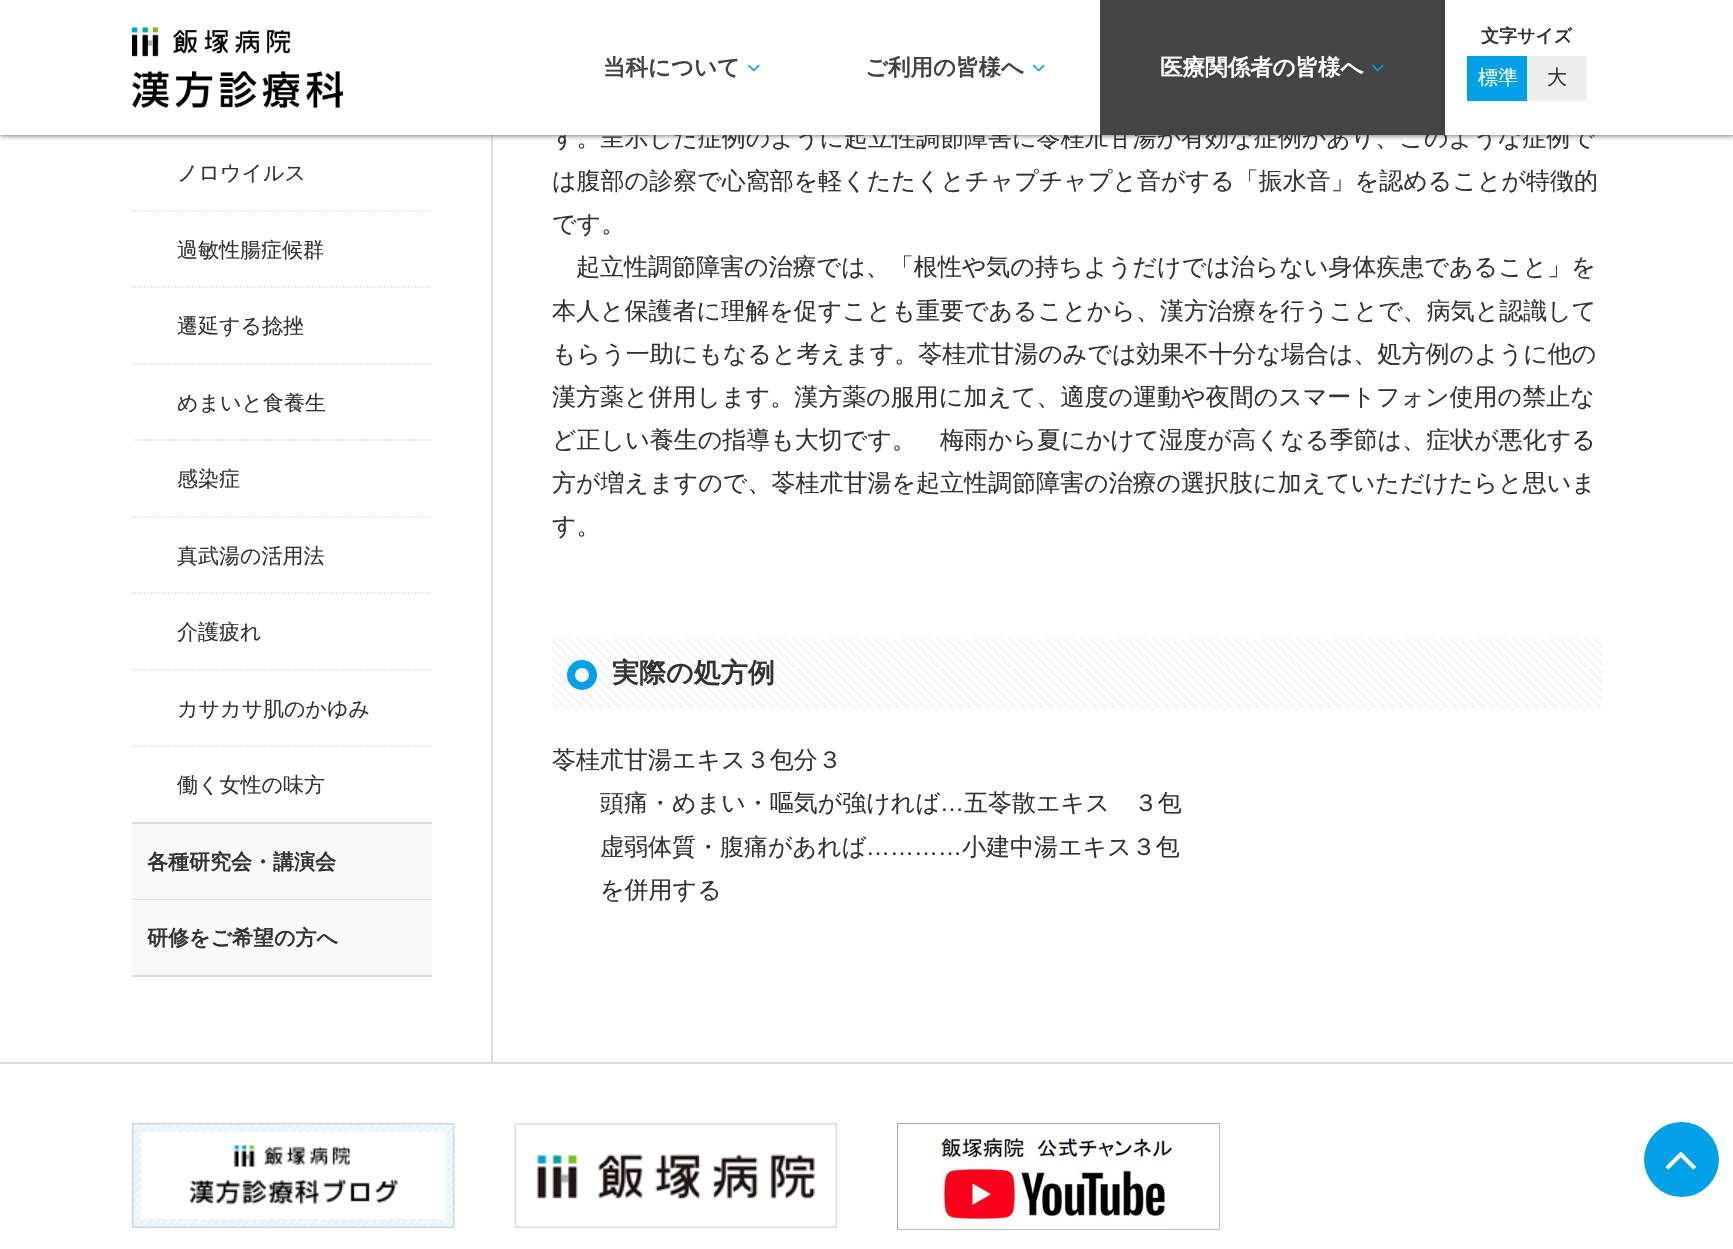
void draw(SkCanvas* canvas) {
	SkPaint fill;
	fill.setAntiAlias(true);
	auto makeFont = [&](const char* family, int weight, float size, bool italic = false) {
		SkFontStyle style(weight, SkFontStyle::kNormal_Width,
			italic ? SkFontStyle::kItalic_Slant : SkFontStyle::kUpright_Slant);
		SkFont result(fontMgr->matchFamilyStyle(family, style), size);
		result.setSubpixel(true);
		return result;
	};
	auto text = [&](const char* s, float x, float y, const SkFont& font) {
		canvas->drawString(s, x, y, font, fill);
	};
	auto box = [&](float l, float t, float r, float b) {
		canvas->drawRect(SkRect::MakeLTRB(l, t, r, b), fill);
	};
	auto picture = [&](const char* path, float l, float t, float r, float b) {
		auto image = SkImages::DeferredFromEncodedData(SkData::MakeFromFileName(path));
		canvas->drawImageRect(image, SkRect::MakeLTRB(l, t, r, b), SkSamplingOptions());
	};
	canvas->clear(0xFFFFFFFF);
	fill.setColor(0xFFDDDDDD);
	box(491, 135, 493, 1062);
	fill.setColor(0xFF555555);
	fill.setMaskFilter(SkMaskFilter::MakeBlur(kNormal_SkBlurStyle, 3));
	canvas->drawRect(SkRect::MakeLTRB(0, 0, 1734, 135), fill);
	fill.setMaskFilter(nullptr);
	fill.setColor(0xFFDDDDDD);
	box(132, 975, 432, 977);
	fill.setStyle(SkPaint::kStroke_Style);
	fill.setStrokeWidth(1.5f);
	fill.setPathEffect(SkDashPathEffect::Make({{1.5f, 1.5f}}, 0));
	canvas->drawPath(SkPathBuilder().moveTo(132, 211).lineTo(432, 211).detach(), fill);
	fill.setPathEffect(nullptr);
	fill.setPathEffect(SkDashPathEffect::Make({{1.5f, 1.5f}}, 0));
	canvas->drawPath(SkPathBuilder().moveTo(132, 287).lineTo(432, 287).detach(), fill);
	fill.setPathEffect(nullptr);
	fill.setPathEffect(SkDashPathEffect::Make({{1.5f, 1.5f}}, 0));
	canvas->drawPath(SkPathBuilder().moveTo(132, 364).lineTo(432, 364).detach(), fill);
	fill.setPathEffect(nullptr);
	fill.setPathEffect(SkDashPathEffect::Make({{1.5f, 1.5f}}, 0));
	canvas->drawPath(SkPathBuilder().moveTo(132, 440).lineTo(432, 440).detach(), fill);
	fill.setPathEffect(nullptr);
	fill.setPathEffect(SkDashPathEffect::Make({{1.5f, 1.5f}}, 0));
	canvas->drawPath(SkPathBuilder().moveTo(132, 517).lineTo(432, 517).detach(), fill);
	fill.setPathEffect(nullptr);
	fill.setPathEffect(SkDashPathEffect::Make({{1.5f, 1.5f}}, 0));
	canvas->drawPath(SkPathBuilder().moveTo(132, 593).lineTo(432, 593).detach(), fill);
	fill.setPathEffect(nullptr);
	fill.setPathEffect(SkDashPathEffect::Make({{1.5f, 1.5f}}, 0));
	canvas->drawPath(SkPathBuilder().moveTo(132, 670).lineTo(432, 670).detach(), fill);
	fill.setPathEffect(nullptr);
	fill.setPathEffect(SkDashPathEffect::Make({{1.5f, 1.5f}}, 0));
	canvas->drawPath(SkPathBuilder().moveTo(132, 746).lineTo(432, 746).detach(), fill);
	fill.setPathEffect(nullptr);
	fill.setStyle(SkPaint::kFill_Style);
	box(132, 822, 432, 824);
	fill.setColor(0xFFF9F9F9);
	box(132, 824, 432, 899);
	fill.setColor(0xFFDDDDDD);
	box(132, 899, 432, 900);
	fill.setColor(0xFFF9F9F9);
	box(132, 900, 432, 975);
	picture("image3.png", 552, 638, 1602, 709);
	fill.setStyle(SkPaint::kStroke_Style);
	fill.setStrokeWidth(8);
	fill.setColor(0xFF00A1E9);
	canvas->drawCircle(582, 675, 11, fill);
	fill.setStyle(SkPaint::kFill_Style);
	fill.setColor(0xFFDDDDDD);
	box(0, 1062, 1733, 1064);
	picture("image4.png", 132, 1123, 455, 1228);
	picture("image5.png", 514, 1123, 837, 1228);
	picture("image6.png", 897, 1123, 1220, 1230);
	fill.setColor(0xFF00A1E9);
	canvas->drawCircle(1681.5f, 1159.5f, 37.5f, fill);
	picture("image7.png", 1665, 1151, 1696, 1170);
	auto font1 = makeFont("WenQuanYi Zen Hei", 500, 21);
	fill.setColor(0xFF333333);
	text("ノロウイルス", 177, 180, font1);
	text("過敏性腸症候群", 177, 257, font1);
	text("遷延する捻挫", 177, 333, font1);
	text("めまいと食養生", 177, 410, font1);
	text("感染症", 177, 486, font1);
	text("真武湯の活用法", 177, 563, font1);
	text("介護疲れ", 177, 639, font1);
	text("カサカサ肌のかゆみ", 177, 716, font1);
	text("働く女性の味方", 177, 792, font1);
	auto font2 = makeFont("WenQuanYi Zen Hei", 700, 21);
	text("各種研究会・講演会", 147, 869, font2);
	text("研修をご希望の方へ", 147, 945, font2);
	auto font3 = makeFont("WenQuanYi Zen Hei", 500, 24);
	text("す。呈示した症例のように起立性調節障害に苓桂朮甘湯が有効な症例があり、このような症例で", 552, 146, font3);
	fill.setColor(0xFFFFFFFF);
	box(0, 0, 1733, 135);
	picture("image0.png", 132, 27, 343, 108);
	auto font4 = makeFont("WenQuanYi Zen Hei", 700, 18);
	fill.setColor(0xFF333333);
	text("文字サイズ", 1481, 42, font4);
	fill.setColor(0xFFEEEEEE);
	box(1527, 56, 1587, 101);
	auto font5 = makeFont("WenQuanYi Zen Hei", 500, 20);
	fill.setColor(0xFF333333);
	text("大", 1547, 84, font5);
	fill.setColor(0xFF00A1E9);
	box(1467, 56, 1527, 101);
	fill.setColor(0xFFFFFFFF);
	text("標準", 1478, 84, font5);
	fill.setColor(0xFF444444);
	box(1100, 0, 1445, 135);
	picture("image2.png", 1372, 64, 1384, 72);
	auto font6 = makeFont("WenQuanYi Zen Hei", 700, 22.5f);
	fill.setColor(0xFFFFFFFF);
	text("医療関係者の皆様へ", 1160, 75, font6);
	picture("image1.png", 1032, 64, 1045, 72);
	fill.setColor(0xFF424242);
	text("ご利用の皆様へ", 865, 75, font6);
	picture("image1.png", 747, 64, 760, 72);
	text("当科について", 603, 75, font6);
	fill.setColor(0xFF333333);
	text("は腹部の診察で心窩部を軽くたたくとチャプチャプと音がする「振水音」を認めることが特徴的", 552, 189, font3);
	text("です。", 552, 232, font3);
	text("起立性調節障害の治療では、「根性や気の持ちようだけでは治らない身体疾患であること」を", 576, 275, font3);
	text("本人と保護者に理解を促すことも重要であることから、漢方治療を行うことで、病気と認識して", 552, 319, font3);
	text("もらう一助にもなると考えます。苓桂朮甘湯のみでは効果不十分な場合は、処方例のように他の", 552, 362, font3);
	text("漢方薬と併用します。漢方薬の服用に加えて、適度の運動や夜間のスマートフォン使用の禁止な", 552, 405, font3);
	text("ど正しい養生の指導も大切です。　梅雨から夏にかけて湿度が高くなる季節は、症状が悪化する", 552, 448, font3);
	text("方が増えますので、苓桂朮甘湯を起立性調節障害の治療の選択肢に加えていただけたらと思いま", 552, 491, font3);
	text("す。", 552, 534, font3);
	auto font7 = makeFont("WenQuanYi Zen Hei", 700, 27);
	text("実際の処方例", 612, 682, font7);
	text("苓桂朮甘湯エキス３包分３", 552, 768, font3);
	text("頭痛・めまい・嘔気が強ければ", 600, 811, font3);
	auto font8 = makeFont("Liberation Sans", 400, 24);
	text("…", 940, 811, font8);
	text("五苓散エキス　３包", 964, 811, font3);
	text("虚弱体質・腹痛があれば", 600, 855, font3);
	text("…………", 866, 855, font8);
	text("小建中湯エキス３包", 962, 855, font3);
	text("を併用する", 600, 898, font3);
}
